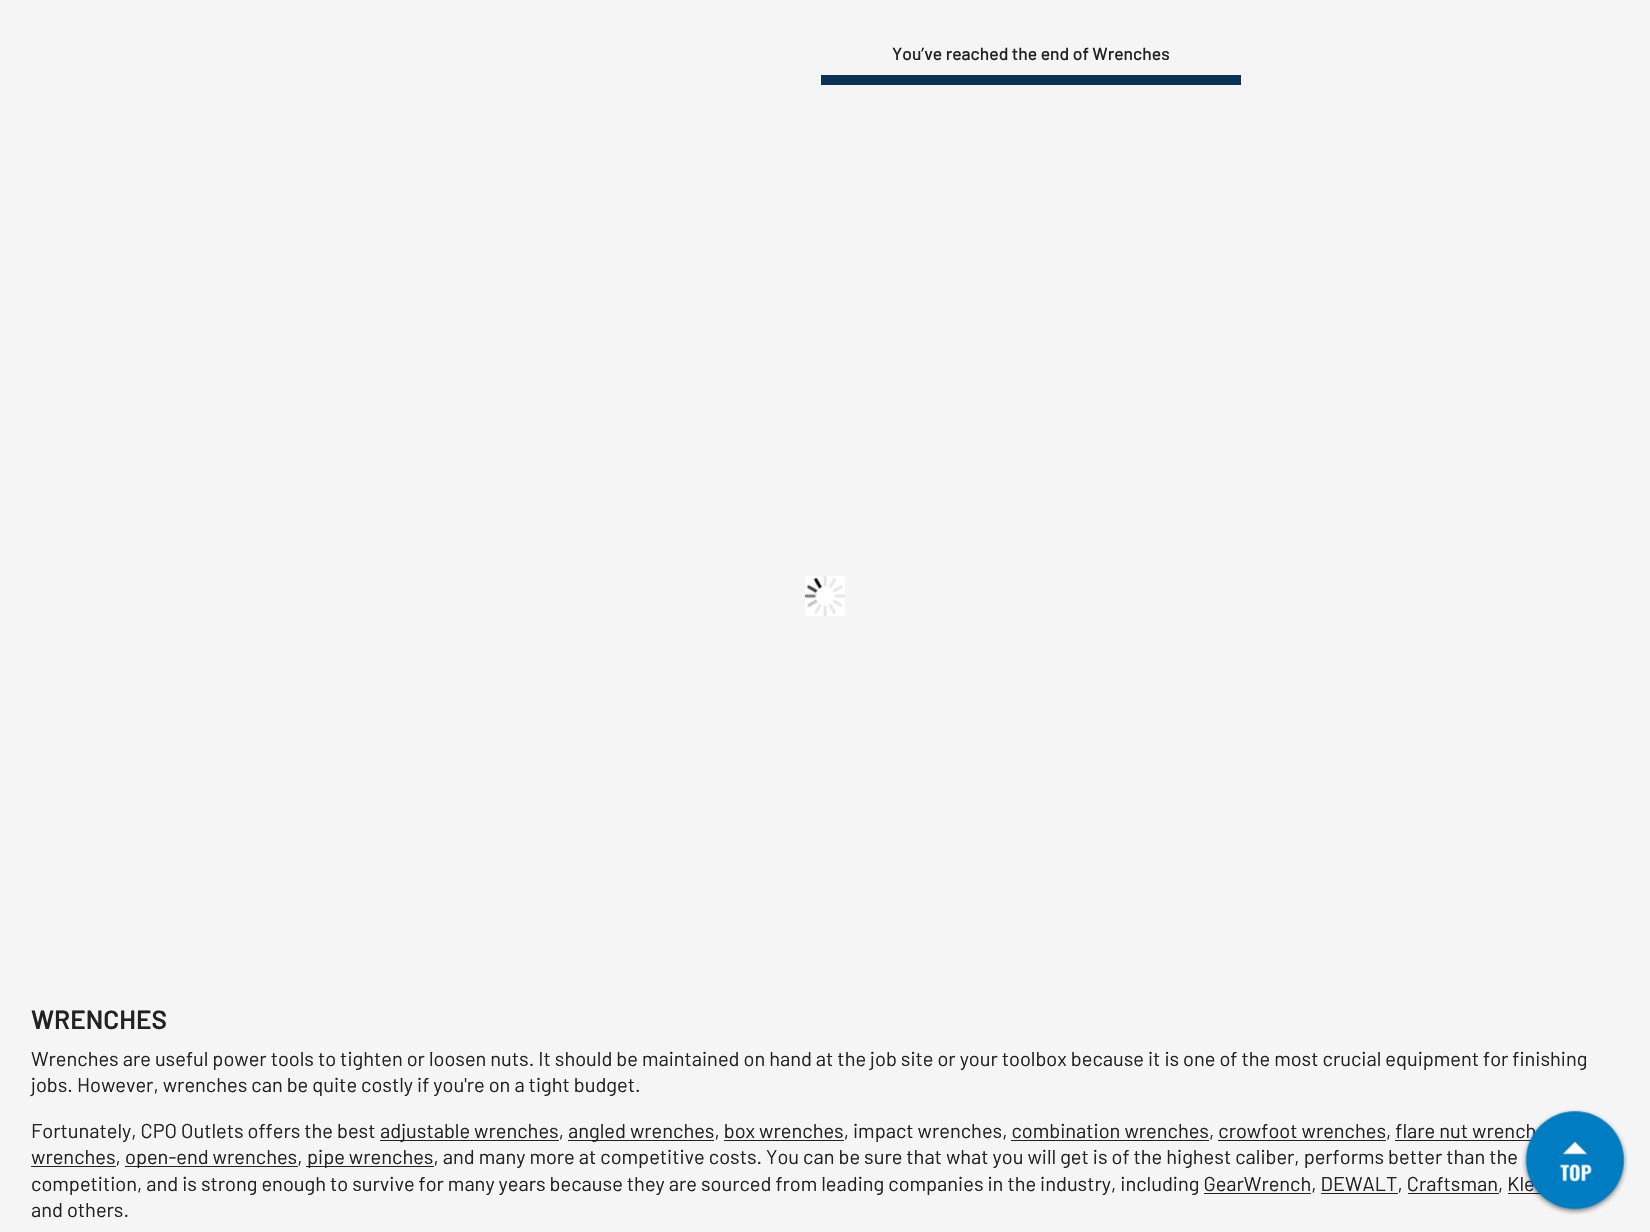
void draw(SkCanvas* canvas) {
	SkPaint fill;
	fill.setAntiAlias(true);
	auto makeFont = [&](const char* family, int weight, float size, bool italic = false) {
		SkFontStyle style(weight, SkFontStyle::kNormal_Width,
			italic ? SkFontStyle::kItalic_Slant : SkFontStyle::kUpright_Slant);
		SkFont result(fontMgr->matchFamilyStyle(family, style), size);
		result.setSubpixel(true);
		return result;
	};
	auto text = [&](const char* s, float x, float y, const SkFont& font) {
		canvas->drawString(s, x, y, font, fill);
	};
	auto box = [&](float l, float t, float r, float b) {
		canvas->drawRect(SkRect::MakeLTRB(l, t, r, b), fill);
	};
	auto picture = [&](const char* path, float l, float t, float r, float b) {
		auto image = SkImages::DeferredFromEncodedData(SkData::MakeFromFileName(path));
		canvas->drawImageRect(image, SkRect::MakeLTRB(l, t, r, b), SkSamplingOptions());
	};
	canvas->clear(0xFFF5F5F6);
	fill.setColor(0xFF0C3256);
	box(821, 75, 1241, 85);
	picture("image0.png", 805, 576, 845, 616);
	fill.setColor(0xFF222222);
	box(380, 1140, 559, 1141);
	box(568, 1140, 714, 1141);
	box(724, 1140, 844, 1141);
	box(1011, 1140, 1209, 1141);
	box(1218, 1140, 1386, 1141);
	box(1395, 1140, 1531, 1141);
	box(31, 1166, 116, 1167);
	box(125, 1166, 298, 1167);
	box(306, 1166, 434, 1167);
	box(1204, 1193, 1311, 1194);
	box(1321, 1193, 1398, 1194);
	box(1408, 1193, 1499, 1194);
	box(1508, 1193, 1541, 1194);
	auto font1 = makeFont("Barlow", 500, 17.5f);
	text("You’ve reached the end of Wrenches", 892, 60, font1);
	auto font2 = makeFont("Barlow", 600, 26.25f);
	text("WRENCHES", 31, 1029, font2);
	auto font3 = makeFont("Barlow", 400, 20);
	text("Wrenches are useful power tools to tighten or loosen nuts. It should be maintained on hand at the job site or your toolbox because it is one of the most crucial equipment for finishing", 31, 1066, font3);
	text("jobs. However, wrenches can be quite costly if you're on a tight budget.", 31, 1092, font3);
	text("Fortunately, CPO Outlets offers the best", 31, 1138, font3);
	text("adjustable wrenches,", 380, 1138, font3);
	text("angled wrenches, box wrenches, impact wrenches, combination wrenches, crowfoot wrenches, flare nut wrench", 568, 1138, font3);
	text("wrenches,", 31, 1164, font3);
	text("open-end wrenches,", 125, 1164, font3);
	text("pipe wrenches, and many more at competitive costs. You can be sure that what you will get is of the highest caliber, performs better than the", 307, 1164, font3);
	text("competition, and is strong enough to survive for many years because they are sourced from leading companies in the industry, including GearWrench, DEWALT, Craftsman, Kle", 31, 1191, font3);
	text("and others.", 31, 1217, font3);
	picture("image1.png", 1522, 1109, 1628, 1215);
}
